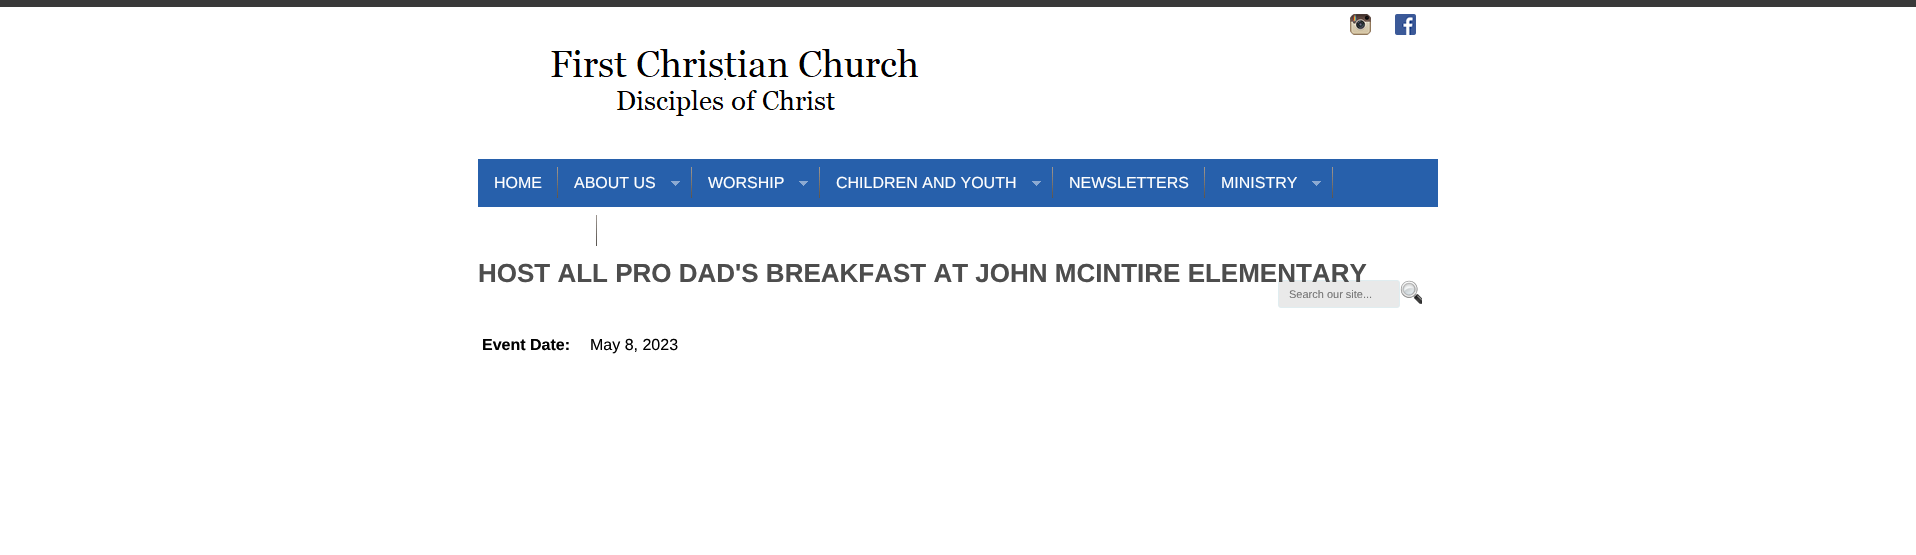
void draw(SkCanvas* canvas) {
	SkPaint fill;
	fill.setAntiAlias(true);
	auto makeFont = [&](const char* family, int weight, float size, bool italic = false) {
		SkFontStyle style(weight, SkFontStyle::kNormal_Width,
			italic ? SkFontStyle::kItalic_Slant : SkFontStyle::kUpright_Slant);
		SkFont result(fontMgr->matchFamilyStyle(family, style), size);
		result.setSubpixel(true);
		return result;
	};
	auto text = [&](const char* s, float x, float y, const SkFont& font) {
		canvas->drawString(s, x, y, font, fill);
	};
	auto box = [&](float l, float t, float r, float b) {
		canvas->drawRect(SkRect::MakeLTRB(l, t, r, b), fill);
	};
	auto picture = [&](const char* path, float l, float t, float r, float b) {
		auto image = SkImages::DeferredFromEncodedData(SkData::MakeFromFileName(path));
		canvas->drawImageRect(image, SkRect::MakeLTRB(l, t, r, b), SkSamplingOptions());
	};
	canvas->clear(0xFFFFFFFF);
	fill.setColor(0xFF393939);
	box(0, 0, 1916, 7);
	picture("image0.png", 1350, 14, 1371, 35);
	picture("image1.png", 1395, 14, 1416, 35);
	picture("image2.png", 551, 49, 919, 116);
	fill.setColor(0xFF2760AB);
	box(478, 159, 1438, 207);
	picture("image3.png", 557, 167, 558, 198);
	picture("image3.png", 691, 167, 692, 198);
	picture("image4.png", 671, 181, 680, 186);
	picture("image3.png", 819, 167, 820, 198);
	picture("image4.png", 799, 181, 808, 186);
	picture("image3.png", 1052, 167, 1053, 198);
	picture("image4.png", 1032, 181, 1041, 186);
	picture("image3.png", 1204, 167, 1205, 198);
	picture("image3.png", 1332, 167, 1333, 198);
	picture("image4.png", 1312, 181, 1321, 186);
	picture("image3.png", 596, 215, 597, 246);
	fill.setColor(0xFFE9E9E9);
	canvas->drawRoundRect(SkRect::MakeLTRB(1278.5f, 280.5f, 1399.5f, 307.5f), 2.5f, 2.5f, fill);
	fill.setStyle(SkPaint::kStroke_Style);
	fill.setStrokeWidth(1);
	fill.setColor(0xFFE0EDF0);
	canvas->drawRoundRect(SkRect::MakeLTRB(1278.5f, 280.5f, 1399.5f, 307.5f), 2.5f, 2.5f, fill);
	picture("image5.png", 1400, 280, 1422, 304);
	auto font1 = makeFont("Liberation Sans", 400, 16);
	fill.setStyle(SkPaint::kFill_Style);
	fill.setColor(0xFFFFFFFF);
	text("HOME", 494, 188, font1);
	text("ABOUT US", 574, 188, font1);
	text("WORSHIP", 708, 188, font1);
	text("CHILDREN AND YOUTH", 836, 188, font1);
	text("NEWSLETTERS", 1069, 188, font1);
	text("MINISTRY", 1221, 188, font1);
	auto font2 = makeFont("Liberation Sans", 400, 11);
	fill.setColor(0xFF757575);
	text("Search our site...", 1289, 298, font2);
	auto font3 = makeFont("Liberation Sans", 700, 26);
	fill.setColor(0xFF4D4D4D);
	text("HOST ALL PRO DAD'S BREAKFAST AT JOHN MCINTIRE ELEMENTARY", 478, 282, font3);
	auto font4 = makeFont("Liberation Sans", 700, 16);
	fill.setColor(0xFF000000);
	text("Event Date:", 482, 350, font4);
	text("May 8, 2023", 590, 350, font1);
}
